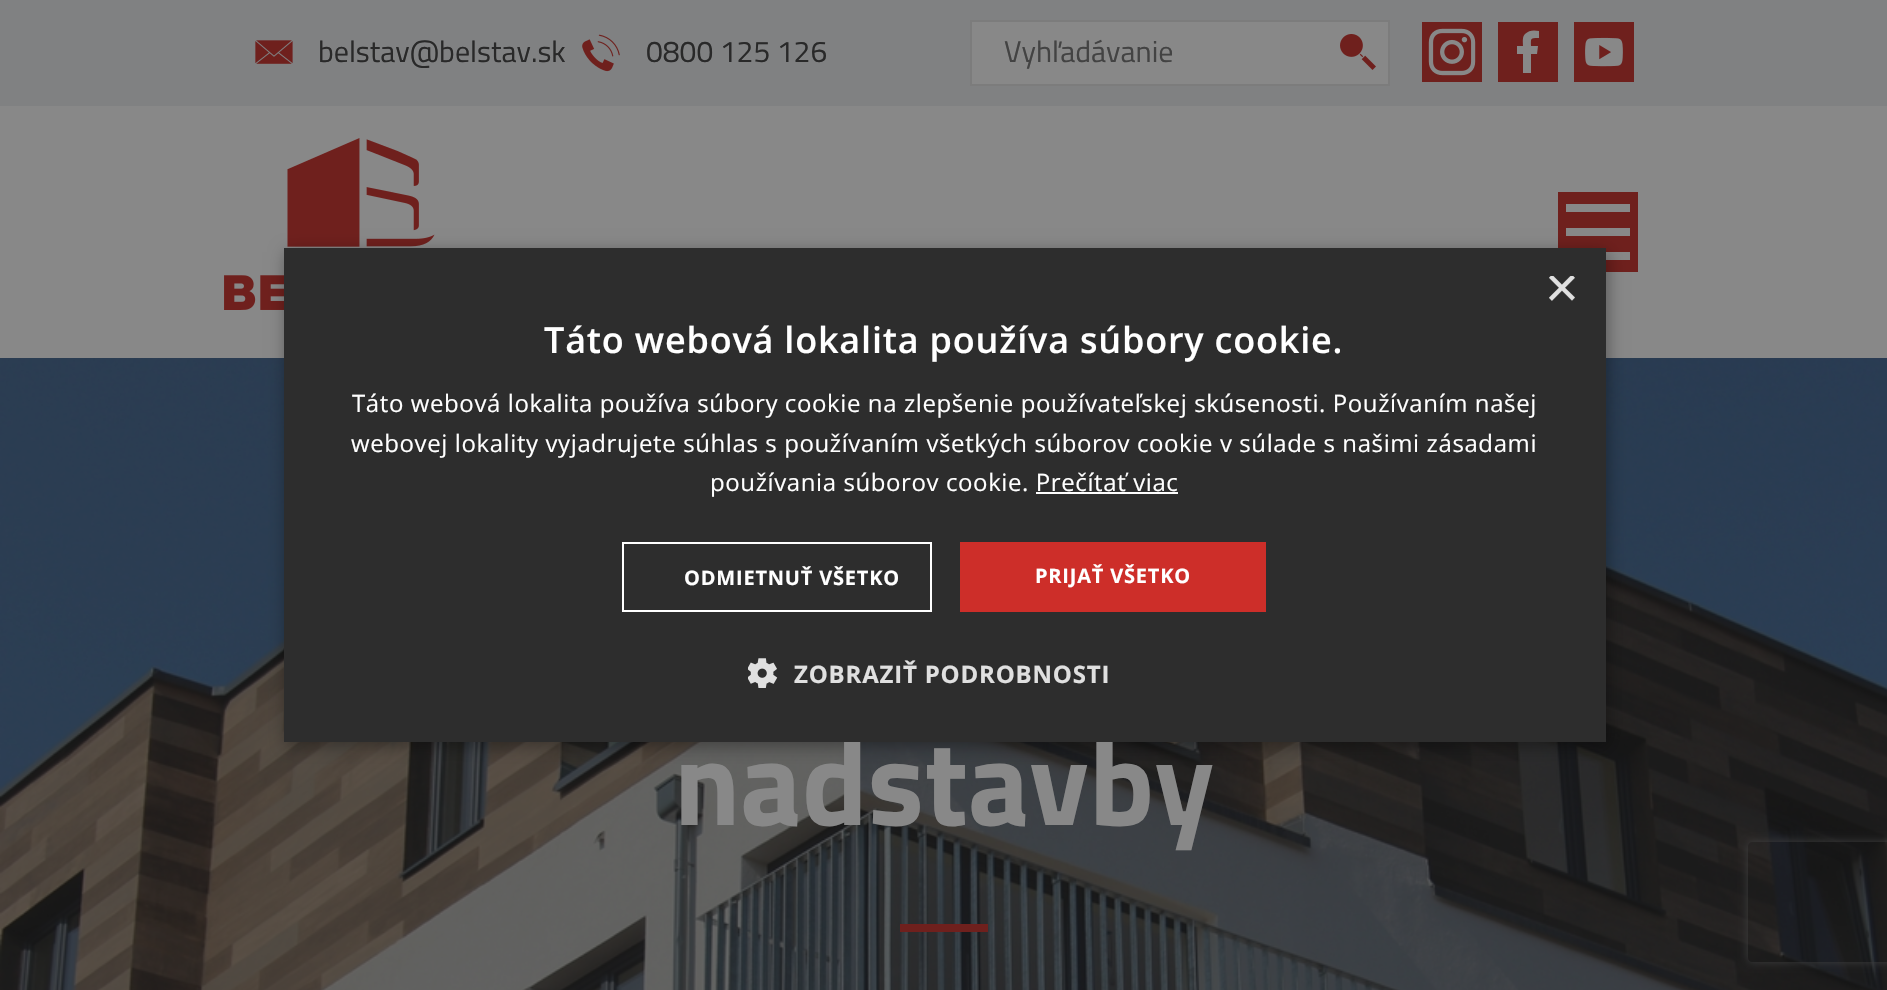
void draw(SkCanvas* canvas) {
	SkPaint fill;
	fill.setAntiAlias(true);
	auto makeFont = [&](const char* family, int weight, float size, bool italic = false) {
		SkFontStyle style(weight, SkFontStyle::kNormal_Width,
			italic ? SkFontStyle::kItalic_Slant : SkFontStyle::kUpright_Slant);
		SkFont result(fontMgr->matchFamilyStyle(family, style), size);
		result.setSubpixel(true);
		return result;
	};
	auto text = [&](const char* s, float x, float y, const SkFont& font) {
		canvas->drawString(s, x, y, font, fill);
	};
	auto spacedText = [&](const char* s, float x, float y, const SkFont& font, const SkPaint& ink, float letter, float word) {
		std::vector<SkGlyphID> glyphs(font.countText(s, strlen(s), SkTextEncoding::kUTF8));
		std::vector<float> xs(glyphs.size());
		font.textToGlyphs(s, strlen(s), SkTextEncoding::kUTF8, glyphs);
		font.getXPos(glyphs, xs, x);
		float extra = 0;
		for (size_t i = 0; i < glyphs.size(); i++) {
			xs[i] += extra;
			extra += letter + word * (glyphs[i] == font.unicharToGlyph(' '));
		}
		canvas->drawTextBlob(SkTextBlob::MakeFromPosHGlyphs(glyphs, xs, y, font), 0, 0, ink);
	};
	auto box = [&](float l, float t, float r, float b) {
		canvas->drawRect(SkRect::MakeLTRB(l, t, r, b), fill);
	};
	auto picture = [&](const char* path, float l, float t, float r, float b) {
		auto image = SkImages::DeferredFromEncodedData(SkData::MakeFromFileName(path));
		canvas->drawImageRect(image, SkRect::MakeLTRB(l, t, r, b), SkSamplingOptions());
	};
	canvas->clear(0xFF888888);
	fill.setColor(0xFF808182);
	box(0, 0, 1887, 106);
	picture("image0.png", 255, 40, 293, 64);
	picture("image1.png", 582, 34, 620, 72);
	fill.setColor(0xFF888888);
	canvas->drawRect(SkRect::MakeLTRB(971, 21, 1389, 85), fill);
	fill.setStyle(SkPaint::kStroke_Style);
	fill.setStrokeWidth(2);
	fill.setColor(0xFF7C7C7C);
	canvas->drawRect(SkRect::MakeLTRB(971, 21, 1389, 85), fill);
	picture("image2.png", 1340, 34, 1376, 70);
	picture("image3.png", 1422, 22, 1482, 82);
	fill.setStyle(SkPaint::kFill_Style);
	fill.setColor(0xFF6F201D);
	box(1498, 22, 1558, 82);
	fill.setColor(0xFF888888);
	canvas->drawPath(SkPathBuilder().moveTo(1525, 34).cubicTo(1529, 30, 1534, 30, 1539, 31).lineTo(1539, 38).cubicTo(1530, 38, 1531, 38, 1531, 46).lineTo(1538, 46).lineTo(1537, 54).lineTo(1531, 54).lineTo(1531, 73).lineTo(1523, 73).lineTo(1523, 54).lineTo(1517, 54).lineTo(1517, 46).lineTo(1523, 46).cubicTo(1523, 42, 1522, 37, 1525, 34).close().detach(), fill);
	picture("image4.png", 1574, 22, 1634, 82);
	picture("image5.png", 224, 138, 435, 310);
	fill.setColor(0xFF6F201D);
	box(1558, 192, 1638, 272);
	fill.setColor(0xFF888888);
	box(1566, 204, 1630, 212);
	box(1566, 228, 1630, 236);
	box(1606, 252, 1630, 260);
	picture("image7.png", 0, 358, 1887, 990);
	fill.setColor(0x59000000);
	fill.setMaskFilter(SkMaskFilter::MakeBlur(kNormal_SkBlurStyle, 8));
	canvas->drawRect(SkRect::MakeLTRB(286, 252, 1608, 746), fill);
	fill.setMaskFilter(nullptr);
	fill.setColor(0xFF6F201D);
	box(900, 924, 988, 932);
	canvas->save();
	canvas->clipPath(SkPathBuilder(SkPathFillType::kEvenOdd).moveTo(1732, 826).lineTo(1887, 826).lineTo(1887, 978).lineTo(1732, 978).close().moveTo(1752, 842).lineTo(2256, 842).cubicTo(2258, 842, 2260, 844, 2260, 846).lineTo(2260, 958).cubicTo(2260, 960, 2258, 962, 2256, 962).lineTo(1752, 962).cubicTo(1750, 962, 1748, 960, 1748, 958).lineTo(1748, 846).cubicTo(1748, 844, 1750, 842, 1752, 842).close().detach(), true);
	fill.setColor(0xFF3E3E3E);
	fill.setMaskFilter(SkMaskFilter::MakeBlur(kNormal_SkBlurStyle, 5));
	canvas->drawRoundRect(SkRect::MakeLTRB(1748, 842, 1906, 962), 4, 4, fill);
	fill.setMaskFilter(nullptr);
	canvas->restore();
	auto font1 = makeFont("Titillium Web", 400, 30);
	fill.setColor(0xFF292929);
	text("belstav@belstav.sk", 318, 62, font1);
	text("0800 125 126", 646, 62, font1);
	fill.setColor(0xFF434343);
	text("Vyhľadávanie", 1004, 62, font1);
	auto font2 = makeFont("Titillium Web", 700, 120);
	fill.setColor(0xFF888888);
	text("nadstavby", 674, 825, font2);
	fill.setColor(0xFF2D2D2D);
	box(284, 248, 1606, 742);
	canvas->save();
	canvas->clipRect(SkRect::MakeLTRB(1546, 276, 1576, 306));
	auto font3 = makeFont("Liberation Sans", 400, 58);
	fill.setColor(0xFFE0E0E0);
	text("×", 1545, 307, font3);
	canvas->restore();
	auto font4 = makeFont("Open Sans", 600, 36);
	fill.setColor(0xFFFFFFFF);
	spacedText("Táto webová lokalita používa súbory cookie.", 544, 353, font4, fill, 0.8f, 0);
	picture("image6.png", 748, 658, 778, 688);
	auto font5 = makeFont("Open Sans", 700, 24);
	fill.setColor(0xFFE0E0E0);
	spacedText("ZOBRAZIŤ PODROBNOSTI", 794, 683, font5, fill, 0.8f, 0);
	fill.setStyle(SkPaint::kStroke_Style);
	fill.setColor(0xFFFFFFFF);
	canvas->drawRect(SkRect::MakeLTRB(623, 543, 931, 611), fill);
	auto font6 = makeFont("Open Sans", 700, 20);
	fill.setStyle(SkPaint::kFill_Style);
	spacedText("ODMIETNUŤ VŠETKO", 684, 585, font6, fill, 0.8f, 0);
	fill.setColor(0xFFCD2E29);
	box(960, 542, 1266, 612);
	fill.setColor(0xFFFFFFFF);
	spacedText("PRIJAŤ VŠETKO", 1035, 583, font6, fill, 0.8f, 0);
	box(1036, 492, 1178, 494);
	auto font7 = makeFont("Open Sans", 400, 24);
	spacedText("používania súborov cookie. Prečítať viac", 710, 491, font7, fill, 0.6f, 0);
	spacedText("webovej lokality vyjadrujete súhlas s používaním všetkých súborov cookie v súlade s našimi zásadami", 351, 452, font7, fill, 0.6f, 0);
	spacedText("Táto webová lokalita používa súbory cookie na zlepšenie používateľskej skúsenosti. Používaním našej", 352, 412, font7, fill, 0.6f, 0);
}
